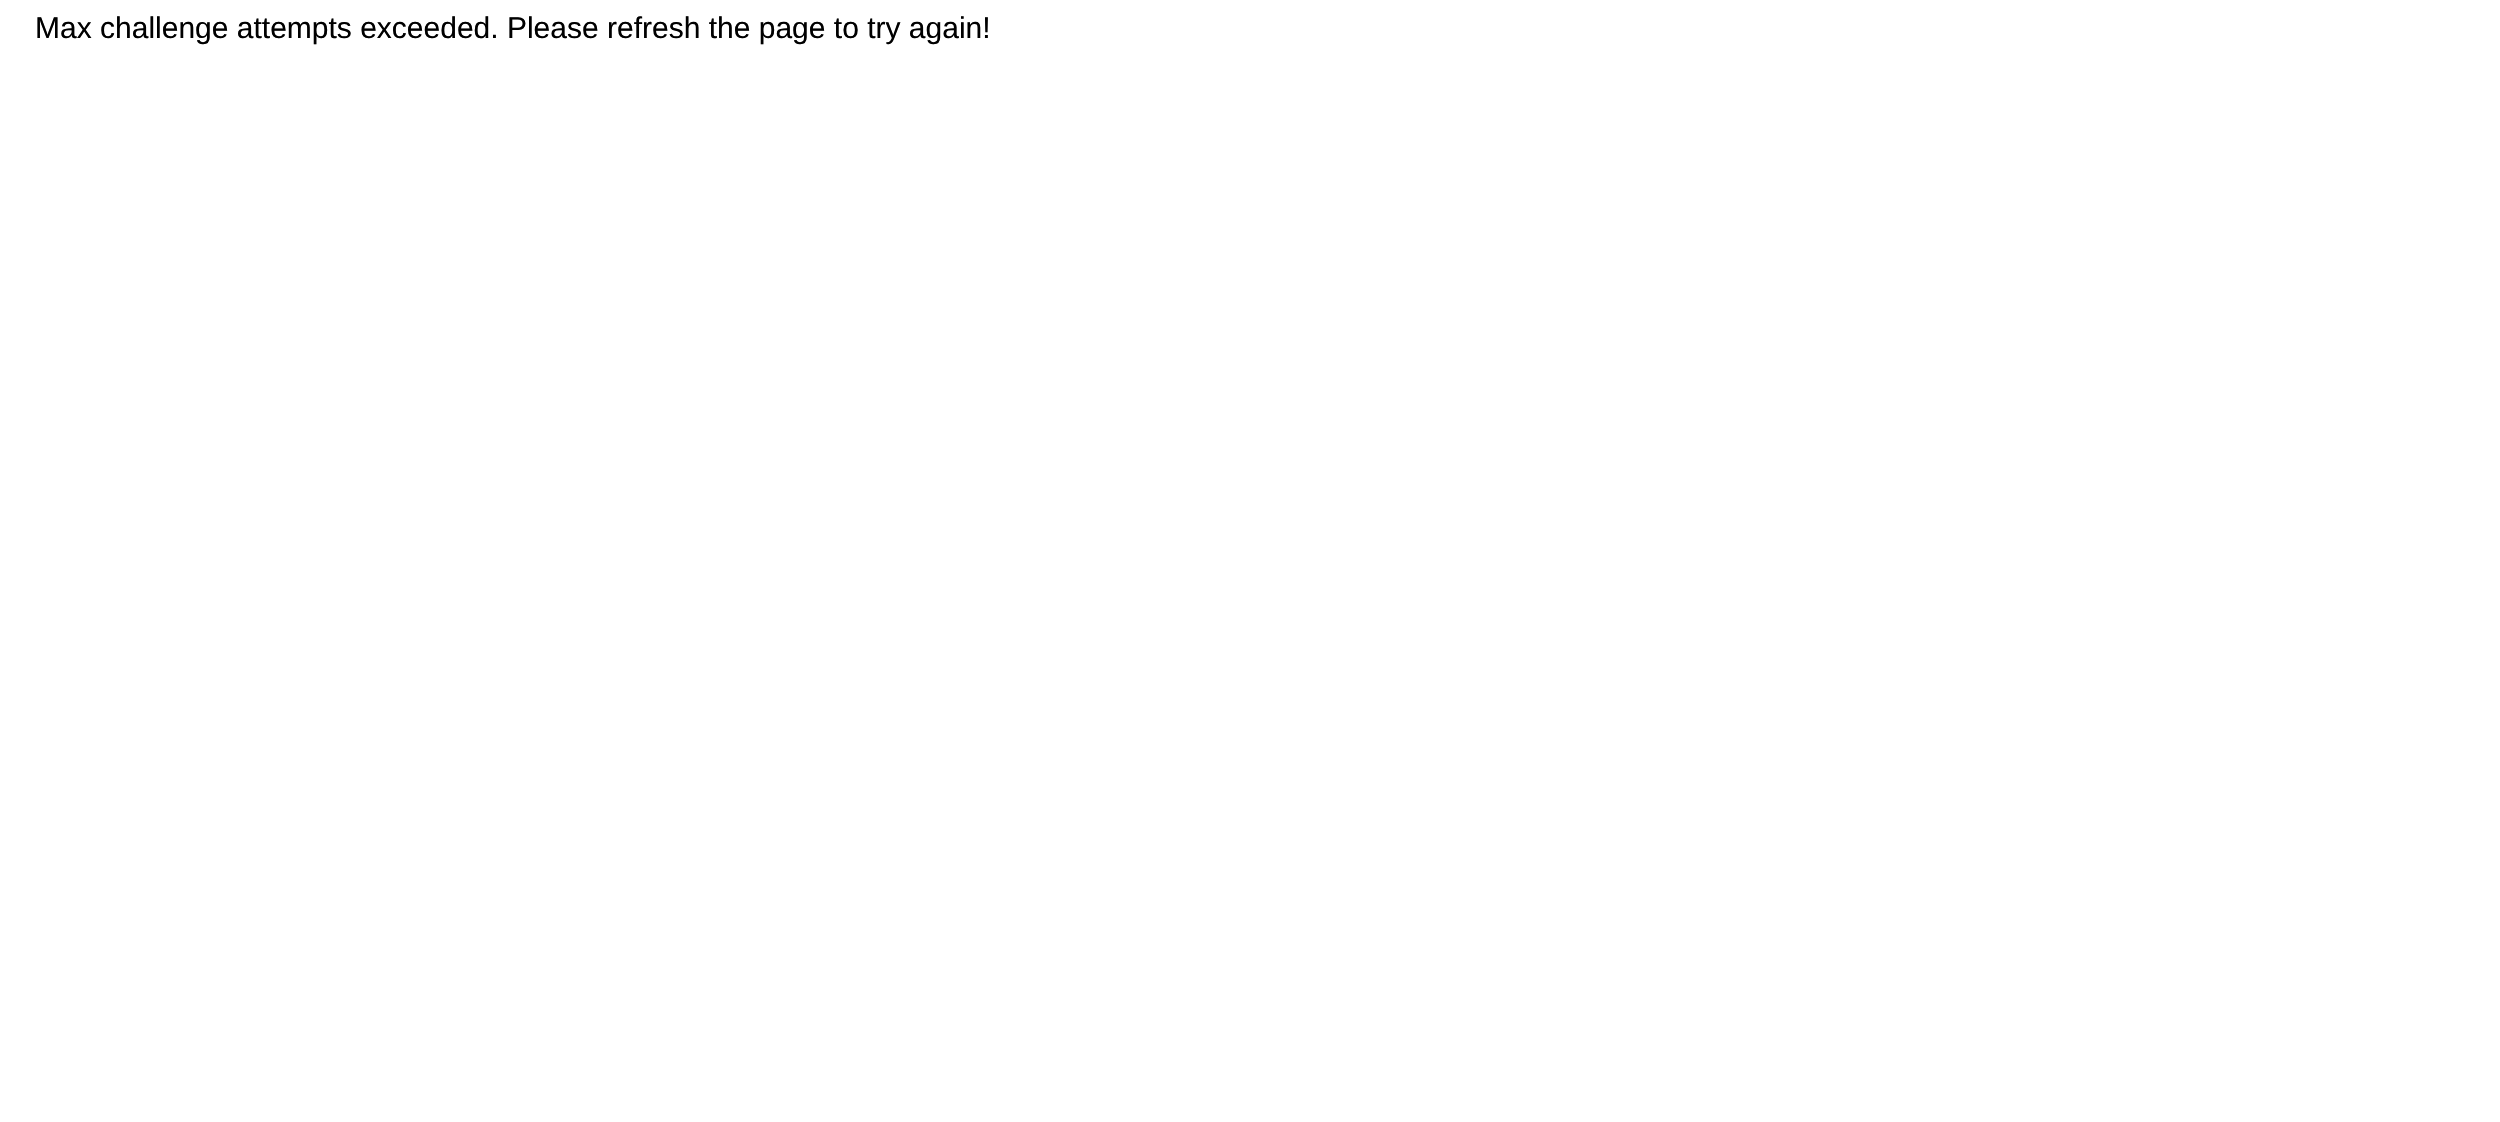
void draw(SkCanvas* canvas) {
	SkPaint fill;
	fill.setAntiAlias(true);
	auto makeFont = [&](const char* family, int weight, float size, bool italic = false) {
		SkFontStyle style(weight, SkFontStyle::kNormal_Width,
			italic ? SkFontStyle::kItalic_Slant : SkFontStyle::kUpright_Slant);
		SkFont result(fontMgr->matchFamilyStyle(family, style), size);
		result.setSubpixel(true);
		return result;
	};
	auto text = [&](const char* s, float x, float y, const SkFont& font) {
		canvas->drawString(s, x, y, font, fill);
	};
	canvas->clear(0xFFFFFFFF);
	auto font1 = makeFont("Liberation Sans", 400, 30);
	fill.setColor(0xFF000000);
	text("Max challenge attempts exceeded. Please refresh the page to try again!", 35, 38, font1);
}
